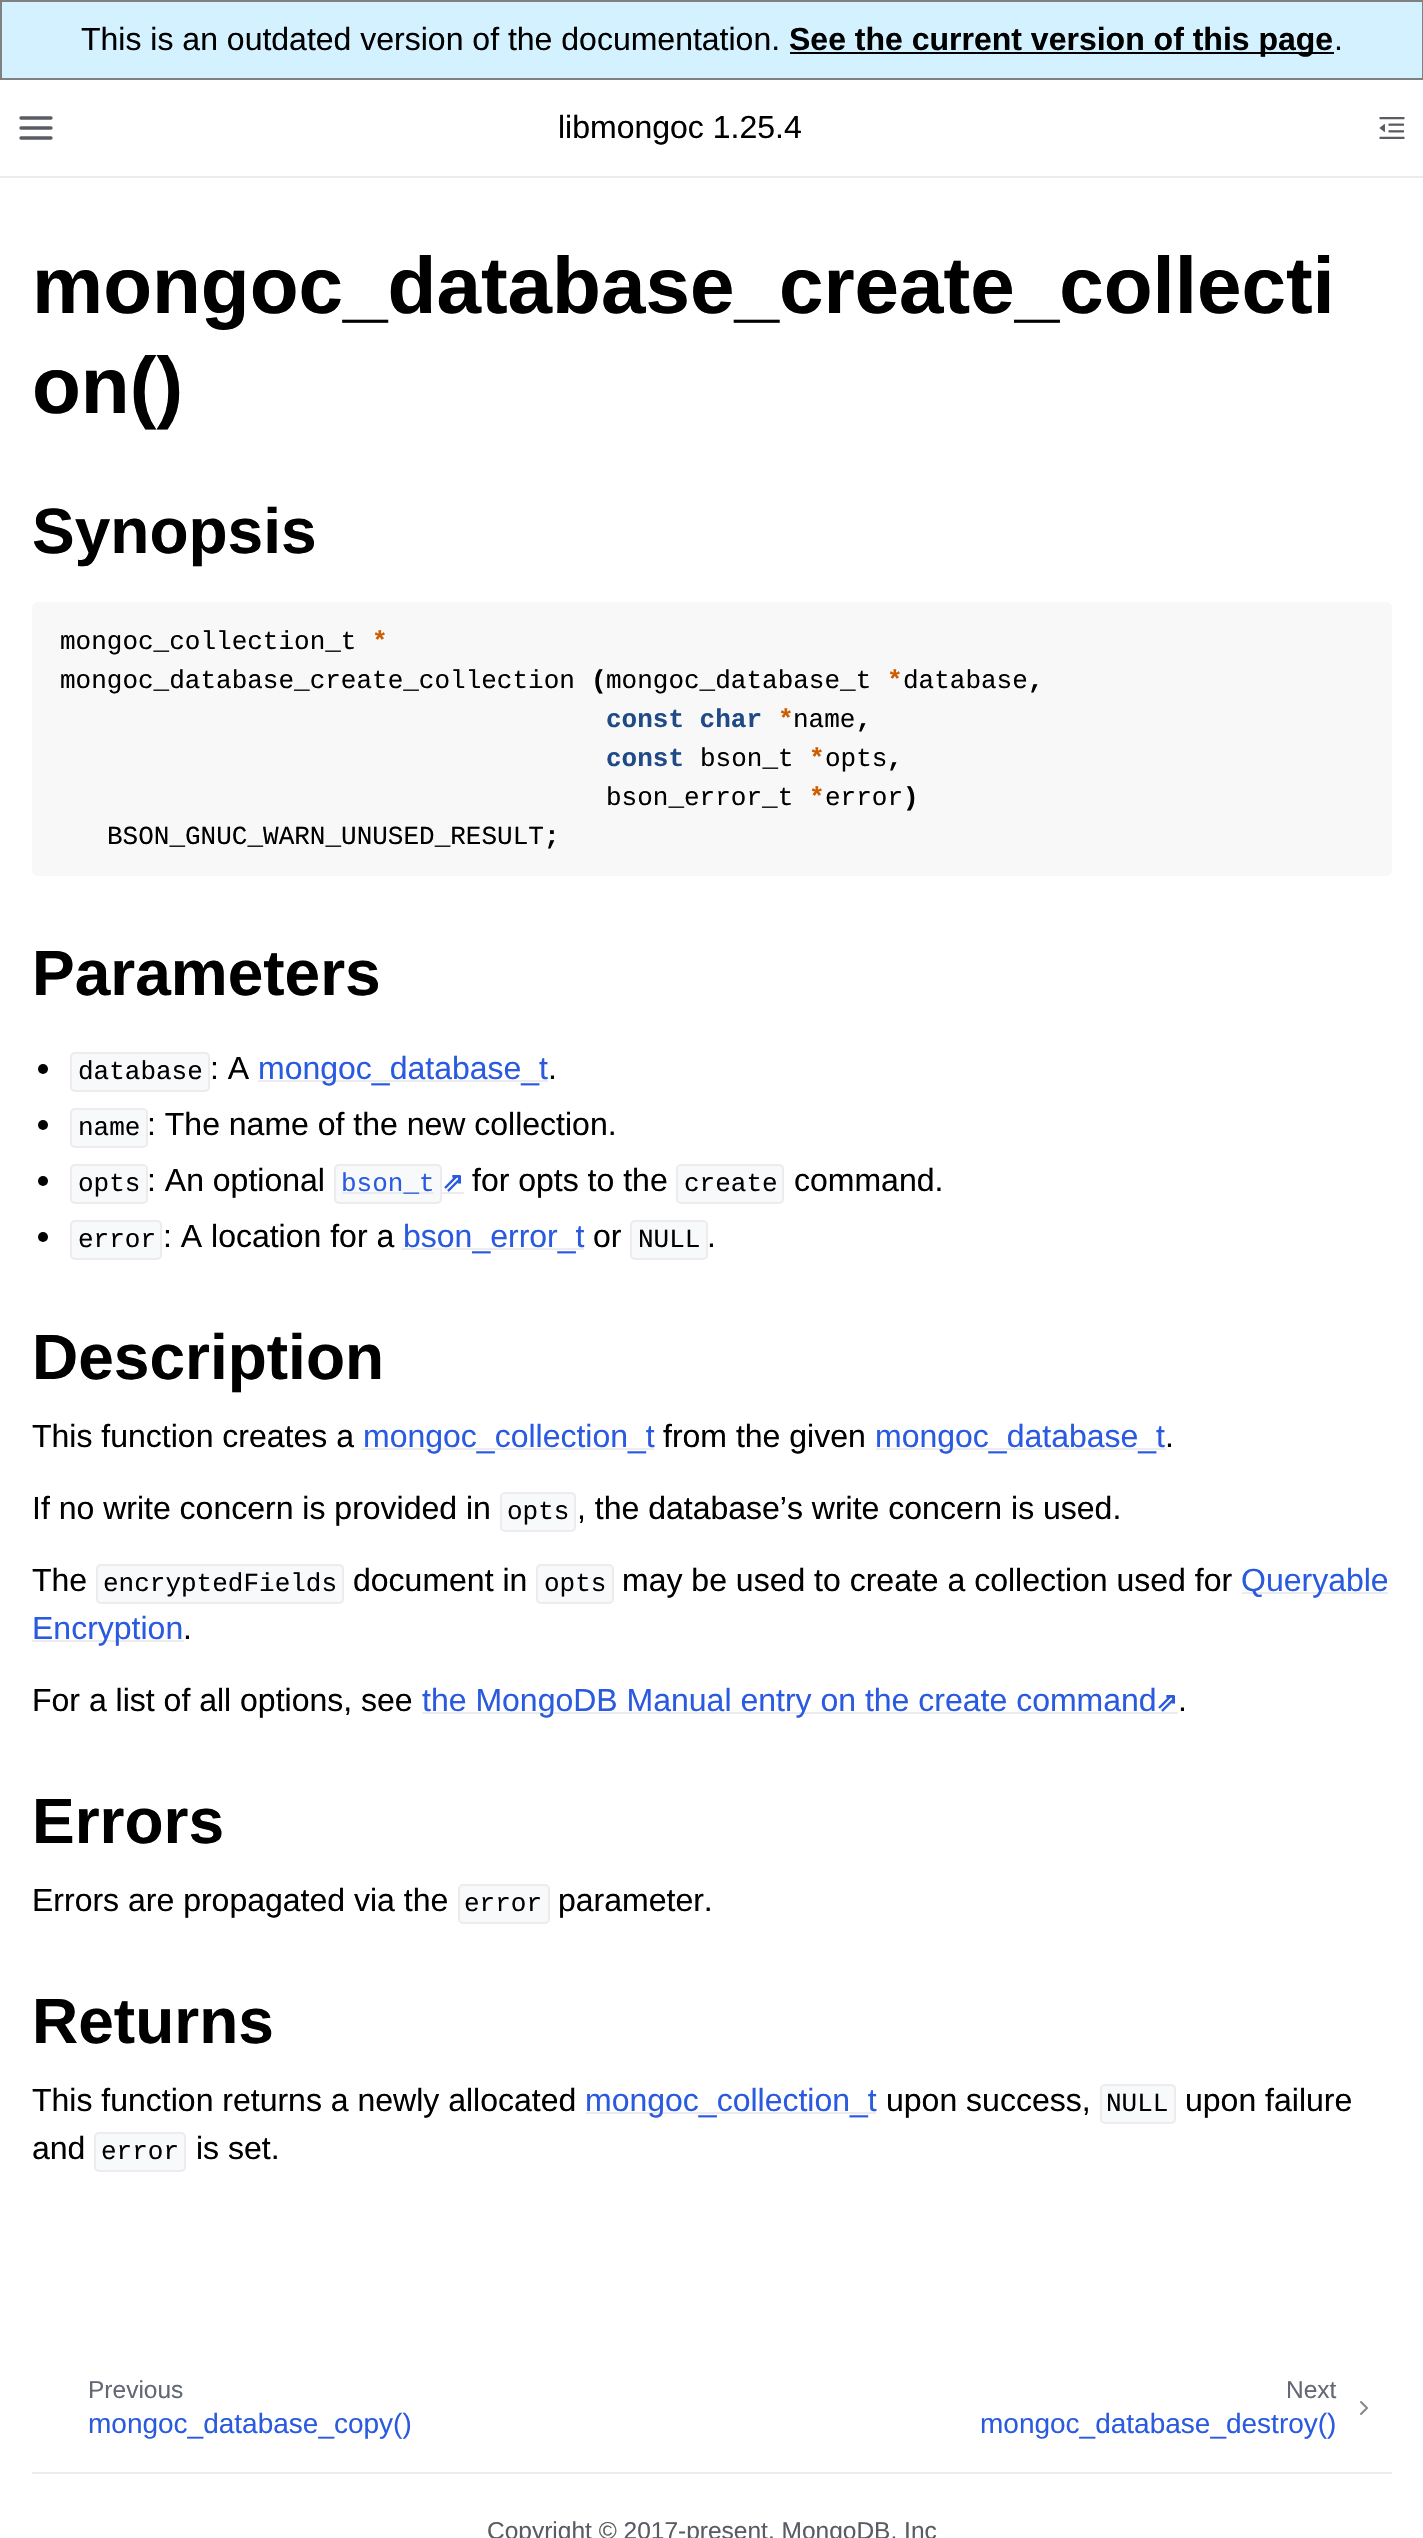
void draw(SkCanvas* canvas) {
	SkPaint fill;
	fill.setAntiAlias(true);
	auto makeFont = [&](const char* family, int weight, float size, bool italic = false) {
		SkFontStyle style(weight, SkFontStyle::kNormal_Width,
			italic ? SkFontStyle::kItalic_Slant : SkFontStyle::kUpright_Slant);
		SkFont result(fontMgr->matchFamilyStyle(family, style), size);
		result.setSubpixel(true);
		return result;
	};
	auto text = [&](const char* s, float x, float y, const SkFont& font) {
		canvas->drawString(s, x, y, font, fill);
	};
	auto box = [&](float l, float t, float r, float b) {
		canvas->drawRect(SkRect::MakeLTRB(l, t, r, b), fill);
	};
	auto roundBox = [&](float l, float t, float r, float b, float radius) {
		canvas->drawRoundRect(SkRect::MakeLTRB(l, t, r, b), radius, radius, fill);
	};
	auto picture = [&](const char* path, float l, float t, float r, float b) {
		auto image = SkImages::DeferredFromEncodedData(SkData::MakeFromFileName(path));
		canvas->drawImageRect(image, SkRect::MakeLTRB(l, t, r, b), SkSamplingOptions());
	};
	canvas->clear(0xFFFFFFFF);
	fill.setColor(0xFFD4F1FF);
	canvas->drawRect(SkRect::MakeLTRB(1, 1, 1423, 79), fill);
	fill.setStyle(SkPaint::kStroke_Style);
	fill.setStrokeWidth(2);
	fill.setColor(0xFF808080);
	canvas->drawRect(SkRect::MakeLTRB(1, 1, 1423, 79), fill);
	fill.setStyle(SkPaint::kFill_Style);
	fill.setColor(0xFF000000);
	box(790, 52, 1334, 54);
	fill.setColor(0xFFEEEBEE);
	box(0, 176, 1423, 178);
	fill.setStyle(SkPaint::kStroke_Style);
	fill.setStrokeWidth(3.3f);
	fill.setStrokeCap(SkPaint::kRound_Cap);
	fill.setStrokeJoin(SkPaint::kRound_Join);
	fill.setColor(0xFF5A5C63);
	canvas->drawPath(SkPathBuilder().moveTo(21, 128).lineTo(51, 128).moveTo(21, 118).lineTo(51, 118).moveTo(21, 138).lineTo(51, 138).detach(), fill);
	picture("image0.png", 1379, 117, 1405, 139);
	fill.setStyle(SkPaint::kFill_Style);
	fill.setColor(0xFFF8F8F8);
	roundBox(32, 602, 1392, 876, 6);
	fill.setColor(0xFF000000);
	canvas->drawCircle(43, 1069, 5, fill);
	fill.setColor(0xFFF8F9FB);
	canvas->drawRoundRect(SkRect::MakeLTRB(71, 1053, 209, 1091), 4, 4, fill);
	fill.setStyle(SkPaint::kStroke_Style);
	fill.setStrokeWidth(2);
	fill.setStrokeCap(SkPaint::kButt_Cap);
	fill.setStrokeJoin(SkPaint::kMiter_Join);
	fill.setColor(0xFFEEEBEE);
	canvas->drawRoundRect(SkRect::MakeLTRB(71, 1053, 209, 1091), 4, 4, fill);
	fill.setStyle(SkPaint::kFill_Style);
	box(258, 1080, 548, 1082);
	fill.setColor(0xFF000000);
	canvas->drawCircle(43, 1125, 5, fill);
	fill.setColor(0xFFF8F9FB);
	canvas->drawRoundRect(SkRect::MakeLTRB(71, 1109, 147, 1147), 4, 4, fill);
	fill.setStyle(SkPaint::kStroke_Style);
	fill.setColor(0xFFEEEBEE);
	canvas->drawRoundRect(SkRect::MakeLTRB(71, 1109, 147, 1147), 4, 4, fill);
	fill.setStyle(SkPaint::kFill_Style);
	fill.setColor(0xFF000000);
	canvas->drawCircle(43, 1181, 5, fill);
	fill.setColor(0xFFF8F9FB);
	canvas->drawRoundRect(SkRect::MakeLTRB(71, 1165, 147, 1203), 4, 4, fill);
	fill.setStyle(SkPaint::kStroke_Style);
	fill.setColor(0xFFEEEBEE);
	canvas->drawRoundRect(SkRect::MakeLTRB(71, 1165, 147, 1203), 4, 4, fill);
	fill.setStyle(SkPaint::kFill_Style);
	fill.setColor(0xFFF8F9FB);
	canvas->drawRoundRect(SkRect::MakeLTRB(335, 1165, 441, 1203), 4, 4, fill);
	fill.setStyle(SkPaint::kStroke_Style);
	fill.setColor(0xFFEEEBEE);
	canvas->drawRoundRect(SkRect::MakeLTRB(335, 1165, 441, 1203), 4, 4, fill);
	fill.setStyle(SkPaint::kFill_Style);
	box(342, 1192, 434, 1194);
	box(442, 1192, 464, 1194);
	fill.setColor(0xFFF8F9FB);
	canvas->drawRoundRect(SkRect::MakeLTRB(677, 1165, 783, 1203), 4, 4, fill);
	fill.setStyle(SkPaint::kStroke_Style);
	fill.setColor(0xFFEEEBEE);
	canvas->drawRoundRect(SkRect::MakeLTRB(677, 1165, 783, 1203), 4, 4, fill);
	fill.setStyle(SkPaint::kFill_Style);
	fill.setColor(0xFF000000);
	canvas->drawCircle(43, 1237, 5, fill);
	fill.setColor(0xFFF8F9FB);
	canvas->drawRoundRect(SkRect::MakeLTRB(71, 1221, 161, 1259), 4, 4, fill);
	fill.setStyle(SkPaint::kStroke_Style);
	fill.setColor(0xFFEEEBEE);
	canvas->drawRoundRect(SkRect::MakeLTRB(71, 1221, 161, 1259), 4, 4, fill);
	fill.setStyle(SkPaint::kFill_Style);
	box(402, 1248, 584, 1250);
	fill.setColor(0xFFF8F9FB);
	canvas->drawRoundRect(SkRect::MakeLTRB(631, 1221, 707, 1259), 4, 4, fill);
	fill.setStyle(SkPaint::kStroke_Style);
	fill.setColor(0xFFEEEBEE);
	canvas->drawRoundRect(SkRect::MakeLTRB(631, 1221, 707, 1259), 4, 4, fill);
	fill.setStyle(SkPaint::kFill_Style);
	box(362, 1448, 654, 1450);
	box(876, 1448, 1166, 1450);
	fill.setColor(0xFFF8F9FB);
	canvas->drawRoundRect(SkRect::MakeLTRB(501, 1493, 575, 1531), 4, 4, fill);
	fill.setStyle(SkPaint::kStroke_Style);
	fill.setColor(0xFFEEEBEE);
	canvas->drawRoundRect(SkRect::MakeLTRB(501, 1493, 575, 1531), 4, 4, fill);
	fill.setStyle(SkPaint::kFill_Style);
	fill.setColor(0xFFF8F9FB);
	canvas->drawRoundRect(SkRect::MakeLTRB(97, 1565, 343, 1603), 4, 4, fill);
	fill.setStyle(SkPaint::kStroke_Style);
	fill.setColor(0xFFEEEBEE);
	canvas->drawRoundRect(SkRect::MakeLTRB(97, 1565, 343, 1603), 4, 4, fill);
	fill.setStyle(SkPaint::kFill_Style);
	fill.setColor(0xFFF8F9FB);
	canvas->drawRoundRect(SkRect::MakeLTRB(537, 1565, 613, 1603), 4, 4, fill);
	fill.setStyle(SkPaint::kStroke_Style);
	fill.setColor(0xFFEEEBEE);
	canvas->drawRoundRect(SkRect::MakeLTRB(537, 1565, 613, 1603), 4, 4, fill);
	fill.setStyle(SkPaint::kFill_Style);
	box(1242, 1592, 1388, 1594);
	box(32, 1640, 184, 1642);
	box(422, 1712, 1178, 1714);
	fill.setColor(0xFFF8F9FB);
	canvas->drawRoundRect(SkRect::MakeLTRB(459, 1885, 549, 1923), 4, 4, fill);
	fill.setStyle(SkPaint::kStroke_Style);
	fill.setColor(0xFFEEEBEE);
	canvas->drawRoundRect(SkRect::MakeLTRB(459, 1885, 549, 1923), 4, 4, fill);
	fill.setStyle(SkPaint::kFill_Style);
	box(586, 2112, 876, 2114);
	fill.setColor(0xFFF8F9FB);
	canvas->drawRoundRect(SkRect::MakeLTRB(1101, 2085, 1175, 2123), 4, 4, fill);
	fill.setStyle(SkPaint::kStroke_Style);
	fill.setColor(0xFFEEEBEE);
	canvas->drawRoundRect(SkRect::MakeLTRB(1101, 2085, 1175, 2123), 4, 4, fill);
	fill.setStyle(SkPaint::kFill_Style);
	fill.setColor(0xFFF8F9FB);
	canvas->drawRoundRect(SkRect::MakeLTRB(95, 2133, 185, 2171), 4, 4, fill);
	fill.setStyle(SkPaint::kStroke_Style);
	fill.setColor(0xFFEEEBEE);
	canvas->drawRoundRect(SkRect::MakeLTRB(95, 2133, 185, 2171), 4, 4, fill);
	fill.setStrokeCap(SkPaint::kRound_Cap);
	fill.setStrokeJoin(SkPaint::kRound_Join);
	fill.setColor(0xFF878787);
	canvas->drawPath(SkPathBuilder().moveTo(1361, 2414).lineTo(1367, 2408).lineTo(1361, 2402).detach(), fill);
	fill.setStyle(SkPaint::kFill_Style);
	fill.setColor(0xFFEEEBEE);
	box(32, 2472, 1392, 2474);
	auto font1 = makeFont("Liberation Sans", 400, 32);
	fill.setColor(0xFF000000);
	text("This is an outdated version of the documentation.", 81, 50, font1);
	auto font2 = makeFont("Liberation Sans", 700, 32);
	text("See the current version of this page", 789, 50, font2);
	text(".", 1334, 50, font1);
	text("libmongoc 1.25.4", 558, 138, font1);
	auto font3 = makeFont("Liberation Sans", 700, 80);
	text("mongoc_database_create_collecti", 32, 313, font3);
	text("on()", 32, 413, font3);
	auto font4 = makeFont("Liberation Sans", 700, 64);
	text("Synopsis", 32, 553, font4);
	auto font5 = makeFont("Liberation Mono", 400, 26);
	text("mongoc_collection_t", 60, 649, font5);
	auto font6 = makeFont("Liberation Mono", 700, 26);
	fill.setColor(0xFFCE5C00);
	text("*", 372, 649, font6);
	fill.setColor(0xFF000000);
	text("mongoc_database_create_collection", 60, 688, font5);
	text("(", 591, 688, font6);
	text("mongoc_database_t", 606, 688, font5);
	fill.setColor(0xFFCE5C00);
	text("*", 887, 688, font6);
	fill.setColor(0xFF000000);
	text("database", 903, 688, font5);
	text(",", 1028, 688, font6);
	fill.setColor(0xFF204A87);
	text("const char", 606, 727, font6);
	fill.setColor(0xFFCE5C00);
	text("*", 778, 727, font6);
	fill.setColor(0xFF000000);
	text("name", 793, 727, font5);
	text(",", 856, 727, font6);
	fill.setColor(0xFF204A87);
	text("const", 606, 766, font6);
	fill.setColor(0xFF000000);
	text("bson_t", 700, 766, font5);
	fill.setColor(0xFFCE5C00);
	text("*", 809, 766, font6);
	fill.setColor(0xFF000000);
	text("opts", 825, 766, font5);
	text(",", 887, 766, font6);
	text("bson_error_t", 606, 805, font5);
	fill.setColor(0xFFCE5C00);
	text("*", 809, 805, font6);
	fill.setColor(0xFF000000);
	text("error", 825, 805, font5);
	text(")", 903, 805, font6);
	text("BSON_GNUC_WARN_UNUSED_RESULT", 107, 844, font5);
	text(";", 544, 844, font6);
	text("Parameters", 32, 995, font4);
	text("database", 78, 1079, font5);
	text(": A", 210, 1079, font1);
	fill.setColor(0xFF2A5ADF);
	text("mongoc_database_t", 258, 1079, font1);
	fill.setColor(0xFF000000);
	text(".", 548, 1079, font1);
	text("name", 78, 1135, font5);
	text(": The name of the new collection.", 147, 1135, font1);
	text("opts", 78, 1191, font5);
	text(": An optional", 147, 1191, font1);
	fill.setColor(0xFF2A5ADF);
	text("bson_t", 341, 1191, font5);
	auto font7 = makeFont("DejaVu Sans", 700, 26);
	text("⇗", 442, 1191, font7);
	fill.setColor(0xFF000000);
	text("for opts to the", 472, 1191, font1);
	text("create", 684, 1191, font5);
	text("command.", 794, 1191, font1);
	text("error", 78, 1247, font5);
	text(": A location for a", 163, 1247, font1);
	fill.setColor(0xFF2A5ADF);
	text("bson_error_t", 403, 1247, font1);
	fill.setColor(0xFF000000);
	text("or", 593, 1247, font1);
	text("NULL", 638, 1247, font5);
	text(".", 707, 1247, font1);
	text("Description", 32, 1379, font4);
	text("This function creates a", 32, 1447, font1);
	fill.setColor(0xFF2A5ADF);
	text("mongoc_collection_t", 363, 1447, font1);
	fill.setColor(0xFF000000);
	text("from the given", 663, 1447, font1);
	fill.setColor(0xFF2A5ADF);
	text("mongoc_database_t", 875, 1447, font1);
	fill.setColor(0xFF000000);
	text(".", 1165, 1447, font1);
	text("If no write concern is provided in", 32, 1519, font1);
	text("opts", 507, 1519, font5);
	text(", the database’s write concern is used.", 577, 1519, font1);
	text("The", 32, 1591, font1);
	text("encryptedFields", 103, 1591, font5);
	text("document in", 353, 1591, font1);
	text("opts", 544, 1591, font5);
	text("may be used to create a collection used for", 622, 1591, font1);
	fill.setColor(0xFF2A5ADF);
	text("Queryable", 1241, 1591, font1);
	text("Encryption", 32, 1639, font1);
	fill.setColor(0xFF000000);
	text(".", 183, 1639, font1);
	text("For a list of all options, see", 32, 1711, font1);
	fill.setColor(0xFF2A5ADF);
	text("the MongoDB Manual entry on the create command", 422, 1711, font1);
	text("⇗", 1156, 1711, font7);
	fill.setColor(0xFF000000);
	text(".", 1178, 1711, font1);
	text("Errors", 32, 1843, font4);
	text("Errors are propagated via the", 32, 1911, font1);
	text("error", 464, 1911, font5);
	text("parameter.", 558, 1911, font1);
	text("Returns", 32, 2043, font4);
	text("This function returns a newly allocated", 32, 2111, font1);
	fill.setColor(0xFF2A5ADF);
	text("mongoc_collection_t", 585, 2111, font1);
	fill.setColor(0xFF000000);
	text("upon success,", 886, 2111, font1);
	text("NULL", 1106, 2111, font5);
	text("upon failure", 1185, 2111, font1);
	text("and", 32, 2159, font1);
	text("error", 101, 2159, font5);
	text("is set.", 196, 2159, font1);
	auto font8 = makeFont("Liberation Sans", 400, 24.5f);
	fill.setColor(0xFF646776);
	text("Previous", 88, 2398, font8);
	auto font9 = makeFont("Liberation Sans", 400, 28);
	fill.setColor(0xFF2A5ADF);
	text("mongoc_database_copy()", 88, 2433, font9);
	fill.setColor(0xFF646776);
	text("Next", 1286, 2398, font8);
	fill.setColor(0xFF2A5ADF);
	text("mongoc_database_destroy()", 980, 2433, font9);
	fill.setColor(0xFF5A5C63);
	text("Copyright © 2017-present, MongoDB, Inc", 487, 2539, font8);
}
